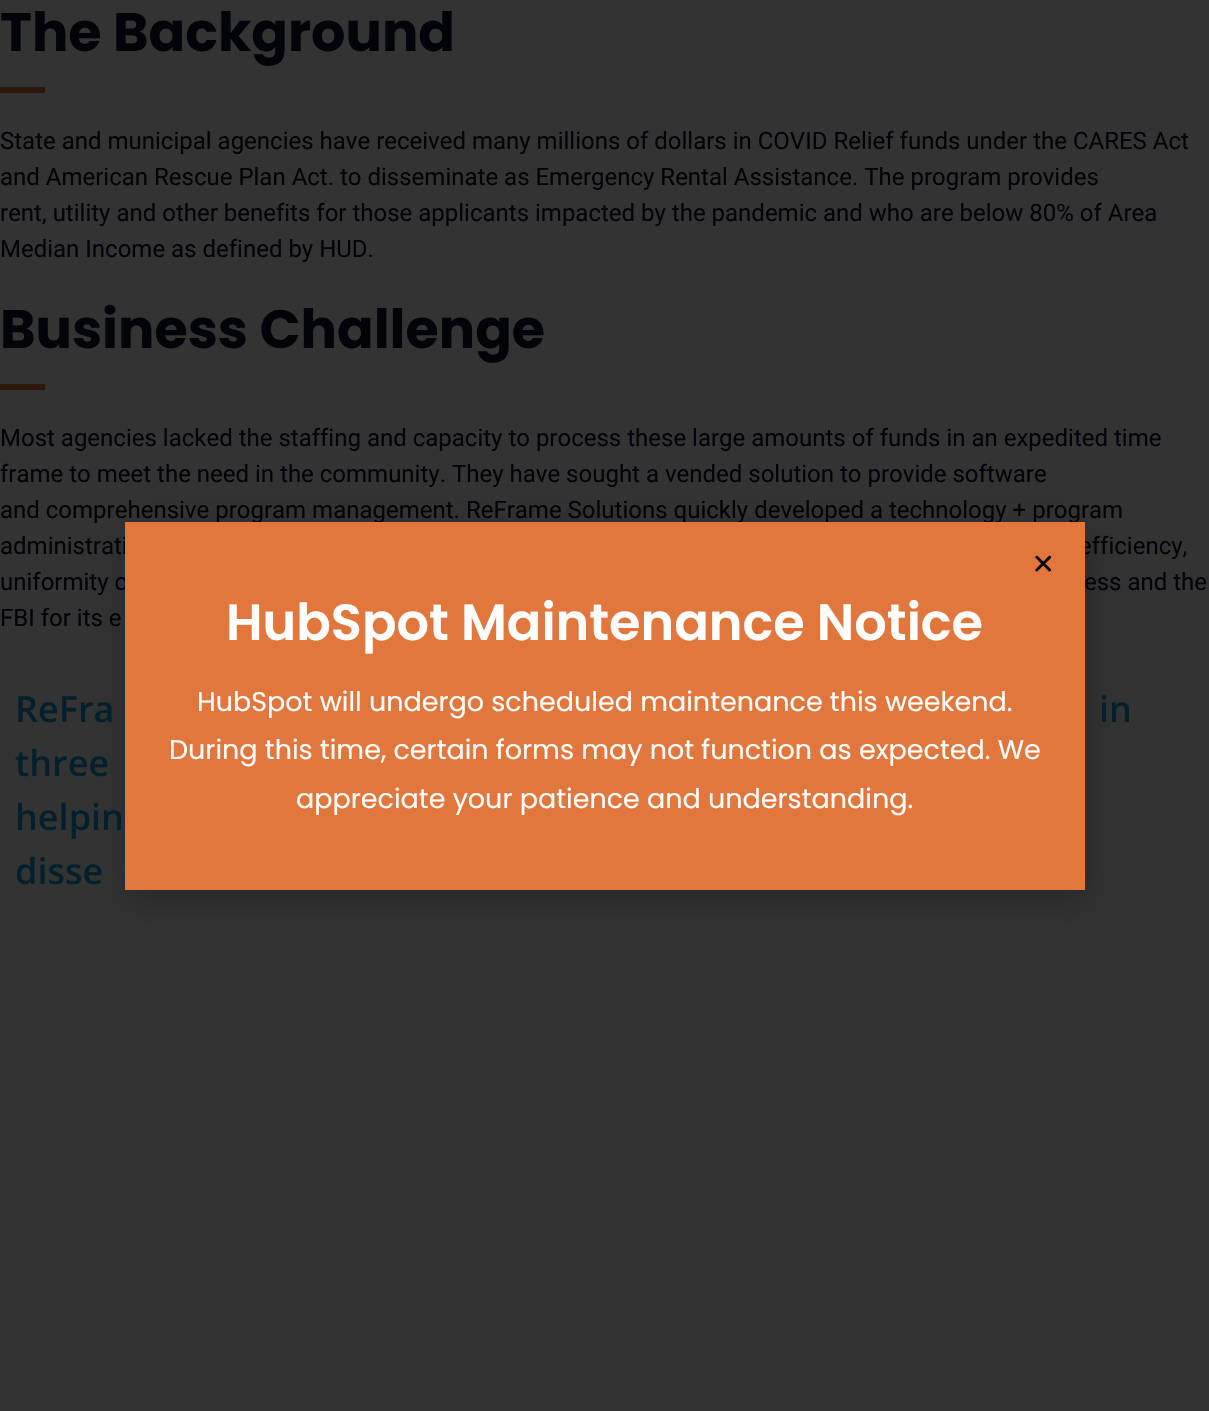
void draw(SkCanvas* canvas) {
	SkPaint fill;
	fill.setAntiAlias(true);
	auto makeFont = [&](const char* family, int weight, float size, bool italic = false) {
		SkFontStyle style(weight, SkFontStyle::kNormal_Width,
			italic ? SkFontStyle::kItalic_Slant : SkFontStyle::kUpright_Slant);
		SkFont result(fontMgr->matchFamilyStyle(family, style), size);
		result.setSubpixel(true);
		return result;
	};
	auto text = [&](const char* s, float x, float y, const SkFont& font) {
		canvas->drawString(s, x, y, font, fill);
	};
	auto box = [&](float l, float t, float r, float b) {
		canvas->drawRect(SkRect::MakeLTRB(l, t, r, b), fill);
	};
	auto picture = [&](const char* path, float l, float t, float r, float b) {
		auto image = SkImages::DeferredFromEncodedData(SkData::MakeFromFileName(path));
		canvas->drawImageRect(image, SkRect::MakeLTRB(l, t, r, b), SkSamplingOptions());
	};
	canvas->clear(0xFF333333);
	fill.setColor(0xFF2D180C);
	box(0, 87, 45, 93);
	box(0, 384, 45, 390);
	fill.setColor(0x33000000);
	fill.setMaskFilter(SkMaskFilter::MakeBlur(kNormal_SkBlurStyle, 17));
	canvas->drawRect(SkRect::MakeLTRB(123, 530, 1092, 906), fill);
	fill.setMaskFilter(nullptr);
	auto font1 = makeFont("Poppins", 700, 54);
	fill.setColor(0xFF03040A);
	text("The Background", 0, 51, font1);
	auto font2 = makeFont("Roboto", 400, 24);
	text("State and municipal agencies have received many millions of dollars in COVID Relief funds under the CARES Act", 0, 149, font2);
	text("and American Rescue Plan Act. to disseminate as Emergency Rental Assistance. The program provides", 0, 185, font2);
	text("rent, utility and other benefits for those applicants impacted by the pandemic and who are below 80% of Area", 0, 221, font2);
	text("Median Income as defined by HUD.", 0, 257, font2);
	text("Business Challenge", 0, 348, font1);
	text("Most agencies lacked the staffing and capacity to process these large amounts of funds in an expedited time", 0, 446, font2);
	text("frame to meet the need in the community. They have sought a vended solution to provide software", 0, 482, font2);
	text("and comprehensive program management. ReFrame Solutions quickly developed a technology + program", 0, 518, font2);
	text("administrati", 0, 554, font2);
	text("efficiency,", 1079, 554, font2);
	text("uniformity o", 0, 590, font2);
	text("ess and the", 1084, 590, font2);
	text("FBI for its e", 0, 626, font2);
	auto font3 = makeFont("Open Sans", 600, 36);
	fill.setColor(0xFF05202C);
	text("ReFra", 15, 722, font3);
	text("in", 1099, 722, font3);
	text("three", 15, 776, font3);
	text("helpin", 15, 830, font3);
	text("disse", 15, 884, font3);
	fill.setColor(0xFFE2773D);
	box(125, 522, 1085, 890);
	picture("image0.png", 1035, 555, 1052, 572);
	auto font4 = makeFont("Poppins", 600, 51);
	fill.setColor(0xFFFFFFFF);
	text("HubSpot Maintenance Notice", 226, 640, font4);
	auto font5 = makeFont("Poppins", 400, 27);
	text("HubSpot will undergo scheduled maintenance this weekend.", 197, 711, font5);
	text("During this time, certain forms may not function as expected. We", 169, 759, font5);
	text("appreciate your patience and understanding.", 296, 808, font5);
}
